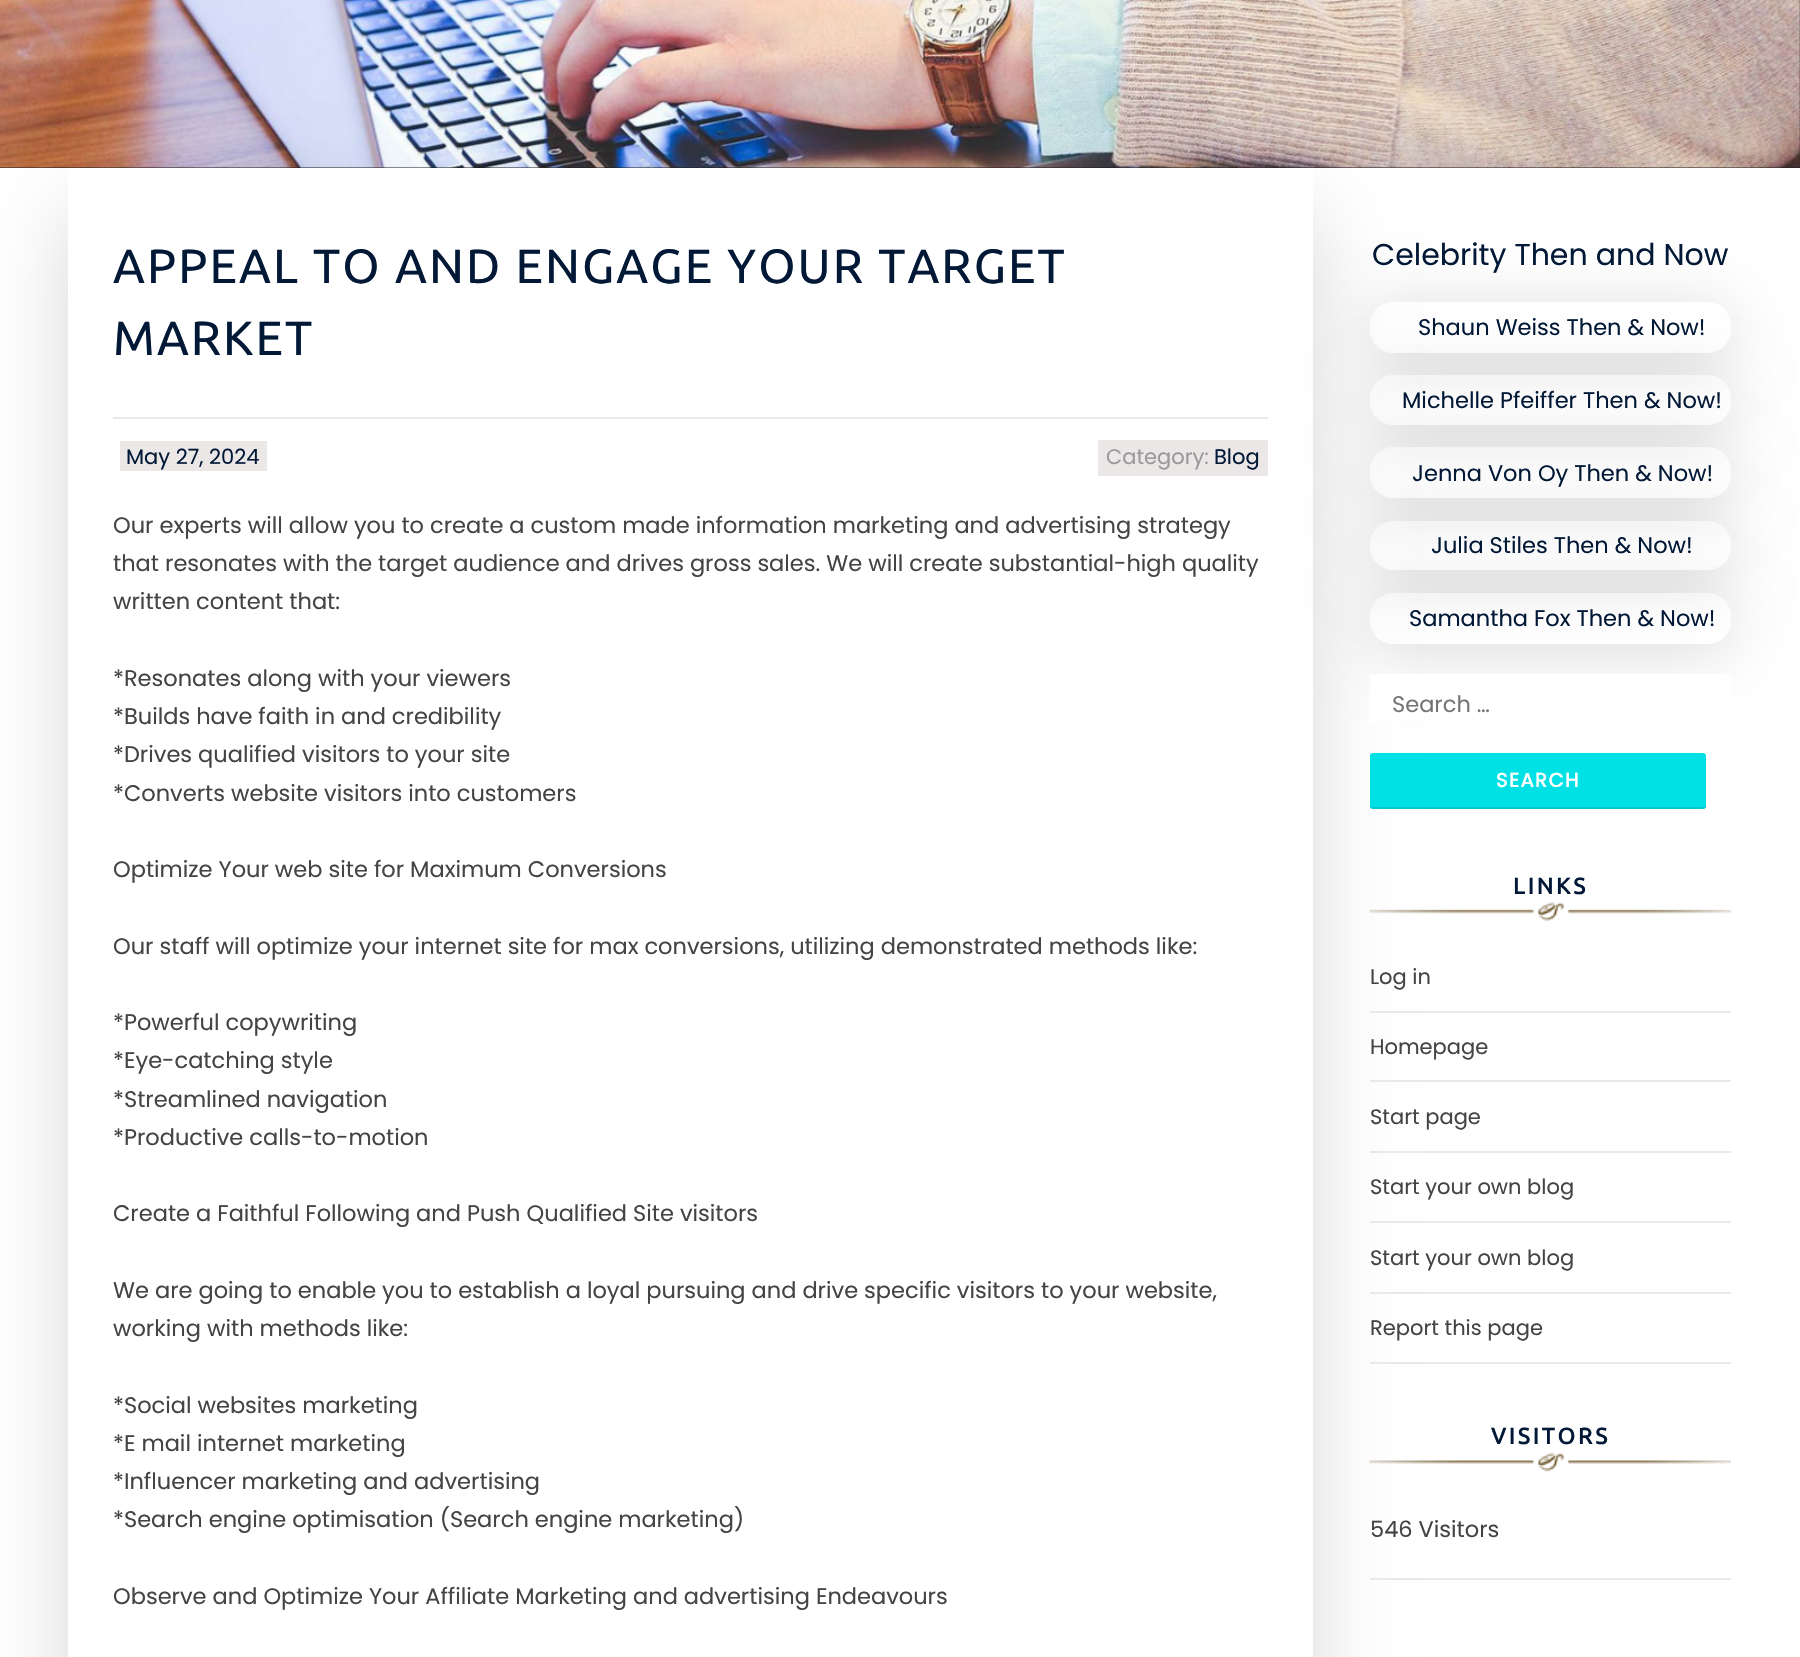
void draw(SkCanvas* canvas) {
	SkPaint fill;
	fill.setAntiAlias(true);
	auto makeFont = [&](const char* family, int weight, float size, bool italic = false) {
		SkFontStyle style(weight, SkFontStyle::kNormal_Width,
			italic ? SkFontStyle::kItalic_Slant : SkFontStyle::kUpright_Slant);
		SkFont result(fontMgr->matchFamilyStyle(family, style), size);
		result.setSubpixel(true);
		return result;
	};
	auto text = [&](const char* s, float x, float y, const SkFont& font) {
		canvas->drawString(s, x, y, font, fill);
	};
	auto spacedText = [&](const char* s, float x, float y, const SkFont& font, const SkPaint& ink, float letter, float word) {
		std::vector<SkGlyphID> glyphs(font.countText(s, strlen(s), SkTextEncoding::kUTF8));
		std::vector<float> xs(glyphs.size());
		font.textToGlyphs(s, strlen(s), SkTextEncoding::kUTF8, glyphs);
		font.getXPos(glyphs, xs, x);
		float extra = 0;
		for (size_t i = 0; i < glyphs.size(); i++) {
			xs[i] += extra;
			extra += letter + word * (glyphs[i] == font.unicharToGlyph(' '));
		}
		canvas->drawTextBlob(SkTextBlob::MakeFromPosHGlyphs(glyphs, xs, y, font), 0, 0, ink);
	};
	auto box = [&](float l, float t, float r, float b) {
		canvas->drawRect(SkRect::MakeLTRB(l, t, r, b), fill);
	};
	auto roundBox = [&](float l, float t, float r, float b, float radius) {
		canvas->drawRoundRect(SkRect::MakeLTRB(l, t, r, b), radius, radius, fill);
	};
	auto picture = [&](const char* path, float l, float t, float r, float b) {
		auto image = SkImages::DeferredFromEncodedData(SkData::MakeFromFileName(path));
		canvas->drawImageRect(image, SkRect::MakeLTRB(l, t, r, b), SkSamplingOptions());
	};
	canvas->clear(0xFFFFFFFF);
	fill.setColor(0xFF222222);
	box(0, 0, 1800, 168);
	picture("image0.png", 0, 0, 1800, 168);
	canvas->save();
	canvas->clipPath(SkPathBuilder(SkPathFillType::kEvenOdd).moveTo(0, 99).lineTo(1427, 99).lineTo(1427, 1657).lineTo(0, 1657).close().moveTo(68, 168).lineTo(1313, 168).lineTo(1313, 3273).lineTo(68, 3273).close().detach(), true);
	fill.setColor(0x26010101);
	fill.setMaskFilter(SkMaskFilter::MakeBlur(kNormal_SkBlurStyle, 37.5f));
	canvas->drawRect(SkRect::MakeLTRB(68, 213, 1313, 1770), fill);
	fill.setMaskFilter(nullptr);
	canvas->restore();
	fill.setColor(0xFFE9E9E9);
	box(113, 417, 1268, 419);
	fill.setColor(0xFFECE7E7);
	box(120, 441, 267, 471);
	box(1098, 440, 1268, 476);
	canvas->save();
	canvas->clipPath(SkPathBuilder(SkPathFillType::kEvenOdd).moveTo(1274, 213).lineTo(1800, 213).lineTo(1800, 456).lineTo(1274, 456).close().moveTo(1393, 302).lineTo(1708, 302).cubicTo(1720.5f, 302, 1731, 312.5f, 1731, 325).lineTo(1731, 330).cubicTo(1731, 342.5f, 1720.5f, 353, 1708, 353).lineTo(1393, 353).cubicTo(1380.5f, 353, 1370, 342.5f, 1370, 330).lineTo(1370, 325).cubicTo(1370, 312.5f, 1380.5f, 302, 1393, 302).close().detach(), true);
	fill.setColor(0x26010101);
	fill.setMaskFilter(SkMaskFilter::MakeBlur(kNormal_SkBlurStyle, 31.5f));
	canvas->drawRoundRect(SkRect::MakeLTRB(1370, 309, 1731, 360), 23, 23, fill);
	fill.setMaskFilter(nullptr);
	canvas->restore();
	canvas->save();
	canvas->clipPath(SkPathBuilder(SkPathFillType::kEvenOdd).moveTo(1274, 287).lineTo(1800, 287).lineTo(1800, 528).lineTo(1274, 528).close().moveTo(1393, 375).lineTo(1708, 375).cubicTo(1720.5f, 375, 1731, 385.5f, 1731, 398).lineTo(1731, 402).cubicTo(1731, 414.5f, 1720.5f, 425, 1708, 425).lineTo(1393, 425).cubicTo(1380.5f, 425, 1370, 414.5f, 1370, 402).lineTo(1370, 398).cubicTo(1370, 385.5f, 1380.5f, 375, 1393, 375).close().detach(), true);
	fill.setMaskFilter(SkMaskFilter::MakeBlur(kNormal_SkBlurStyle, 31.5f));
	canvas->drawRoundRect(SkRect::MakeLTRB(1370, 383, 1731, 432), 23, 23, fill);
	fill.setMaskFilter(nullptr);
	canvas->restore();
	canvas->save();
	canvas->clipPath(SkPathBuilder(SkPathFillType::kEvenOdd).moveTo(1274, 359).lineTo(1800, 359).lineTo(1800, 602).lineTo(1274, 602).close().moveTo(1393, 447).lineTo(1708, 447).cubicTo(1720.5f, 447, 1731, 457.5f, 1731, 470).lineTo(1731, 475).cubicTo(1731, 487.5f, 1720.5f, 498, 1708, 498).lineTo(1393, 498).cubicTo(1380.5f, 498, 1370, 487.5f, 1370, 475).lineTo(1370, 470).cubicTo(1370, 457.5f, 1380.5f, 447, 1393, 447).close().detach(), true);
	fill.setMaskFilter(SkMaskFilter::MakeBlur(kNormal_SkBlurStyle, 31.5f));
	canvas->drawRoundRect(SkRect::MakeLTRB(1370, 455, 1731, 506), 23, 23, fill);
	fill.setMaskFilter(nullptr);
	canvas->restore();
	canvas->save();
	canvas->clipPath(SkPathBuilder(SkPathFillType::kEvenOdd).moveTo(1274, 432).lineTo(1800, 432).lineTo(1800, 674).lineTo(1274, 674).close().moveTo(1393, 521).lineTo(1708, 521).cubicTo(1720.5f, 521, 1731, 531.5f, 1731, 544).lineTo(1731, 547).cubicTo(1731, 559.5f, 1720.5f, 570, 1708, 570).lineTo(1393, 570).cubicTo(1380.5f, 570, 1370, 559.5f, 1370, 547).lineTo(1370, 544).cubicTo(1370, 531.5f, 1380.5f, 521, 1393, 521).close().detach(), true);
	fill.setMaskFilter(SkMaskFilter::MakeBlur(kNormal_SkBlurStyle, 31.5f));
	canvas->drawRoundRect(SkRect::MakeLTRB(1370, 528, 1731, 578), 23, 23, fill);
	fill.setMaskFilter(nullptr);
	canvas->restore();
	canvas->save();
	canvas->clipPath(SkPathBuilder(SkPathFillType::kEvenOdd).moveTo(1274, 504).lineTo(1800, 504).lineTo(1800, 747).lineTo(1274, 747).close().moveTo(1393, 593).lineTo(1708, 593).cubicTo(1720.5f, 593, 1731, 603.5f, 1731, 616).lineTo(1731, 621).cubicTo(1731, 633.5f, 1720.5f, 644, 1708, 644).lineTo(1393, 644).cubicTo(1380.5f, 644, 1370, 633.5f, 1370, 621).lineTo(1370, 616).cubicTo(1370, 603.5f, 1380.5f, 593, 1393, 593).close().detach(), true);
	fill.setMaskFilter(SkMaskFilter::MakeBlur(kNormal_SkBlurStyle, 31.5f));
	canvas->drawRoundRect(SkRect::MakeLTRB(1370, 600, 1731, 651), 23, 23, fill);
	fill.setMaskFilter(nullptr);
	canvas->restore();
	fill.setColor(0xFFFFFFFF);
	box(1370, 674, 1731, 722);
	fill.setColor(0xFF00E1E5);
	roundBox(1370, 753, 1706, 809, 3);
	fill.setColor(0x1A000000);
	canvas->drawPath(SkPathBuilder().moveTo(1370, 804).lineTo(1370, 806).cubicTo(1370, 808, 1371, 809, 1373, 809).lineTo(1703, 809).cubicTo(1705, 809, 1706, 808, 1706, 806).lineTo(1706, 804).cubicTo(1706, 806, 1704, 807, 1702, 807).lineTo(1372, 807).cubicTo(1371, 807, 1370, 806, 1370, 804).close().detach(), fill);
	picture("image1.png", 1369, 902, 1731, 921);
	fill.setColor(0xFFE9E9E9);
	box(1370, 1011, 1731, 1013);
	box(1370, 1080, 1731, 1082);
	box(1370, 1151, 1731, 1153);
	box(1370, 1221, 1731, 1223);
	box(1370, 1292, 1731, 1294);
	box(1370, 1362, 1731, 1364);
	picture("image2.png", 1369, 1452, 1731, 1472);
	box(1370, 1578, 1731, 1580);
	auto font1 = makeFont("Ubuntu", 400, 48);
	fill.setColor(0xFF011836);
	spacedText("APPEAL TO AND ENGAGE YOUR TARGET", 113, 283, font1, fill, 2.1f, 0);
	spacedText("MARKET", 113, 355, font1, fill, 2.1f, 0);
	auto font2 = makeFont("Poppins", 400, 21);
	text("May 27, 2024", 126, 464, font2);
	fill.setColor(0xFF999999);
	text("Category:", 1106, 464, font2);
	fill.setColor(0xFF011836);
	text("Blog", 1214, 464, font2);
	auto font3 = makeFont("Poppins", 400, 22.5f);
	fill.setColor(0xFF444444);
	text("Our experts will allow you to create a custom made information marketing and advertising strategy", 113, 533, font3);
	text("that resonates with the target audience and drives gross sales. We will create substantial-high quality", 113, 571, font3);
	text("written content that:", 113, 609, font3);
	text("*Resonates along with your viewers", 113, 686, font3);
	text("*Builds have faith in and credibility", 113, 724, font3);
	text("*Drives qualified visitors to your site", 113, 762, font3);
	text("*Converts website visitors into customers", 113, 801, font3);
	text("Optimize Your web site for Maximum Conversions", 113, 877, font3);
	text("Our staff will optimize your internet site for max conversions, utilizing demonstrated methods like:", 113, 954, font3);
	text("*Powerful copywriting", 113, 1030, font3);
	text("*Eye-catching style", 113, 1068, font3);
	text("*Streamlined navigation", 113, 1107, font3);
	text("*Productive calls-to-motion", 113, 1145, font3);
	text("Create a Faithful Following and Push Qualified Site visitors", 113, 1221, font3);
	text("We are going to enable you to establish a loyal pursuing and drive specific visitors to your website,", 113, 1298, font3);
	text("working with methods like:", 113, 1336, font3);
	text("*Social websites marketing", 113, 1413, font3);
	text("*E mail internet marketing", 113, 1451, font3);
	text("*Influencer marketing and advertising", 113, 1489, font3);
	text("*Search engine optimisation (Search engine marketing)", 113, 1527, font3);
	text("Observe and Optimize Your Affiliate Marketing and advertising Endeavours", 113, 1604, font3);
	auto font4 = makeFont("Poppins", 400, 30);
	fill.setColor(0xFF011836);
	text("Celebrity Then and Now", 1372, 265, font4);
	text("Shaun Weiss Then & Now!", 1418, 335, font3);
	text("Michelle Pfeiffer Then & Now!", 1402, 408, font3);
	text("Jenna Von Oy Then & Now!", 1412, 481, font3);
	text("Julia Stiles Then & Now!", 1431, 553, font3);
	text("Samantha Fox Then & Now!", 1409, 626, font3);
	fill.setColor(0xFF757575);
	text("Search …", 1392, 712, font3);
	auto font5 = makeFont("Poppins", 700, 19.5f);
	fill.setColor(0xFFFFFFFF);
	spacedText("SEARCH", 1496, 787, font5, fill, 1.5f, 0);
	auto font6 = makeFont("Ubuntu", 700, 22.5f);
	fill.setColor(0xFF011836);
	spacedText("LINKS", 1513, 894, font6, fill, 3, 0);
	fill.setColor(0xFF444444);
	text("Log in", 1370, 984, font2);
	text("Homepage", 1370, 1054, font2);
	text("Start page", 1370, 1124, font2);
	text("Start your own blog", 1370, 1194, font2);
	text("Start your own blog", 1370, 1265, font2);
	text("Report this page", 1370, 1335, font2);
	fill.setColor(0xFF011836);
	spacedText("VISITORS", 1491, 1444, font6, fill, 3, 0);
	fill.setColor(0xFF444444);
	text("546 Visitors", 1370, 1537, font3);
}
